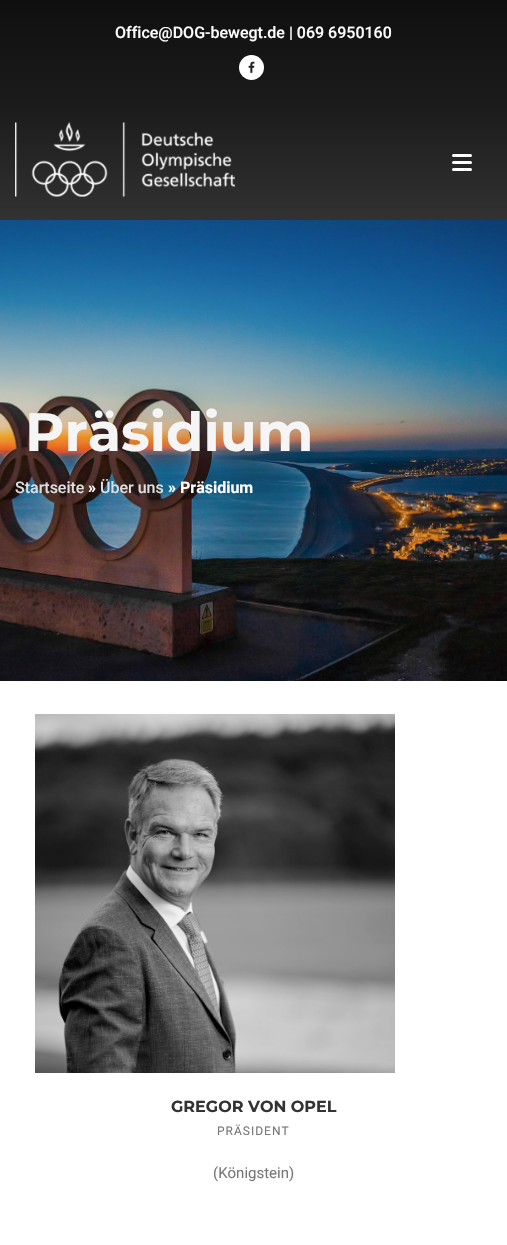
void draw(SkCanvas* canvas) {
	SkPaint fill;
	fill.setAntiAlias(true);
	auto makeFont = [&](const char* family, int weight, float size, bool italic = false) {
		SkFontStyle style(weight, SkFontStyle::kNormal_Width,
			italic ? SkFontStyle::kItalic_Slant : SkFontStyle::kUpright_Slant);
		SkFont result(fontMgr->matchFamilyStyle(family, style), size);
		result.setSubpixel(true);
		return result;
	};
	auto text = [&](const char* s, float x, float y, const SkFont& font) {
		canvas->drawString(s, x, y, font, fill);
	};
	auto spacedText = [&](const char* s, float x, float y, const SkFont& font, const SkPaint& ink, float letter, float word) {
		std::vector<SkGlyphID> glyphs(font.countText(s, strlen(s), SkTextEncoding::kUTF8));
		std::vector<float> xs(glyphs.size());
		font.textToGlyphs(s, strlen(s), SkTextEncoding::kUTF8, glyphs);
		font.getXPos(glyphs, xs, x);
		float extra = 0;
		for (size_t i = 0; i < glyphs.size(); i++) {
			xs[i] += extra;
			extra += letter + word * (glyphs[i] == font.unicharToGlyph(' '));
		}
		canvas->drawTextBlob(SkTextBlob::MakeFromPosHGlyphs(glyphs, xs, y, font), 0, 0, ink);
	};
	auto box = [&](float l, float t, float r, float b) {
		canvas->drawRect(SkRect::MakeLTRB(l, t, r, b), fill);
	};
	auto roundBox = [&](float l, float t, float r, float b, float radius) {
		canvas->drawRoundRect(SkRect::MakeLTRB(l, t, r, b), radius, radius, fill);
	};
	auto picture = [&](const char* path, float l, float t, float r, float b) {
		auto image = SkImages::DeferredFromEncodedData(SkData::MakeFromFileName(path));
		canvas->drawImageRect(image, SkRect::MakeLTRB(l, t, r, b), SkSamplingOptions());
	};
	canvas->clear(0xFFFFFFFF);
	{
		const SkColor colors[] = {0xFF0F0F0F, 0xFF1C1C1C, 0xFF323232};
		const float stops[] = {0, 0.5f, 1};
		const SkPoint ends[] = {{254, 0}, {254, 220}};
		fill.setShader(SkGradientShader::MakeLinear(ends, colors, stops, 3, SkTileMode::kClamp));
		fill.setAlpha(255);
	}
	box(0, 0, 507, 220);
	fill.setShader(nullptr);
	fill.setColor(0xFFFFFFFF);
	canvas->drawCircle(251.5f, 67.5f, 12.5f, fill);
	picture("image0.png", 248, 61, 255, 73);
	picture("image1.png", 15, 122, 235, 197);
	roundBox(452, 154, 472, 157, 1.5f);
	roundBox(452, 161, 472, 164, 1.5f);
	roundBox(452, 168, 472, 171, 1.5f);
	picture("image2.png", 0, 220, 507, 681);
	picture("image3.png", 35, 714, 395, 1073);
	auto font1 = makeFont("Roboto", 500, 16);
	text("Office@DOG-bewegt.de | 069 6950160", 115, 38, font1);
	auto font2 = makeFont("Montserrat", 700, 54);
	fill.setColor(0xFFF5F5F5);
	text("Präsidium", 25, 451, font2);
	fill.setColor(0xFFDDDDDD);
	text("Startseite", 15, 493, font1);
	auto font3 = makeFont("Roboto", 700, 16);
	fill.setColor(0xFFFFFFFF);
	text("»", 88, 493, font3);
	fill.setColor(0xFFDDDDDD);
	text("Über uns", 100, 493, font1);
	fill.setColor(0xFFFFFFFF);
	text("» Präsidium", 168, 493, font3);
	auto font4 = makeFont("Montserrat", 700, 16);
	fill.setColor(0xFF333333);
	text("GREGOR VON OPEL", 171, 1112, font4);
	auto font5 = makeFont("Roboto", 400, 12);
	fill.setColor(0xFF777777);
	spacedText("PRÄSIDENT", 217, 1135, font5, fill, 1, 0);
	auto font6 = makeFont("Roboto", 400, 15);
	text("(Königstein)", 213, 1178, font6);
}
